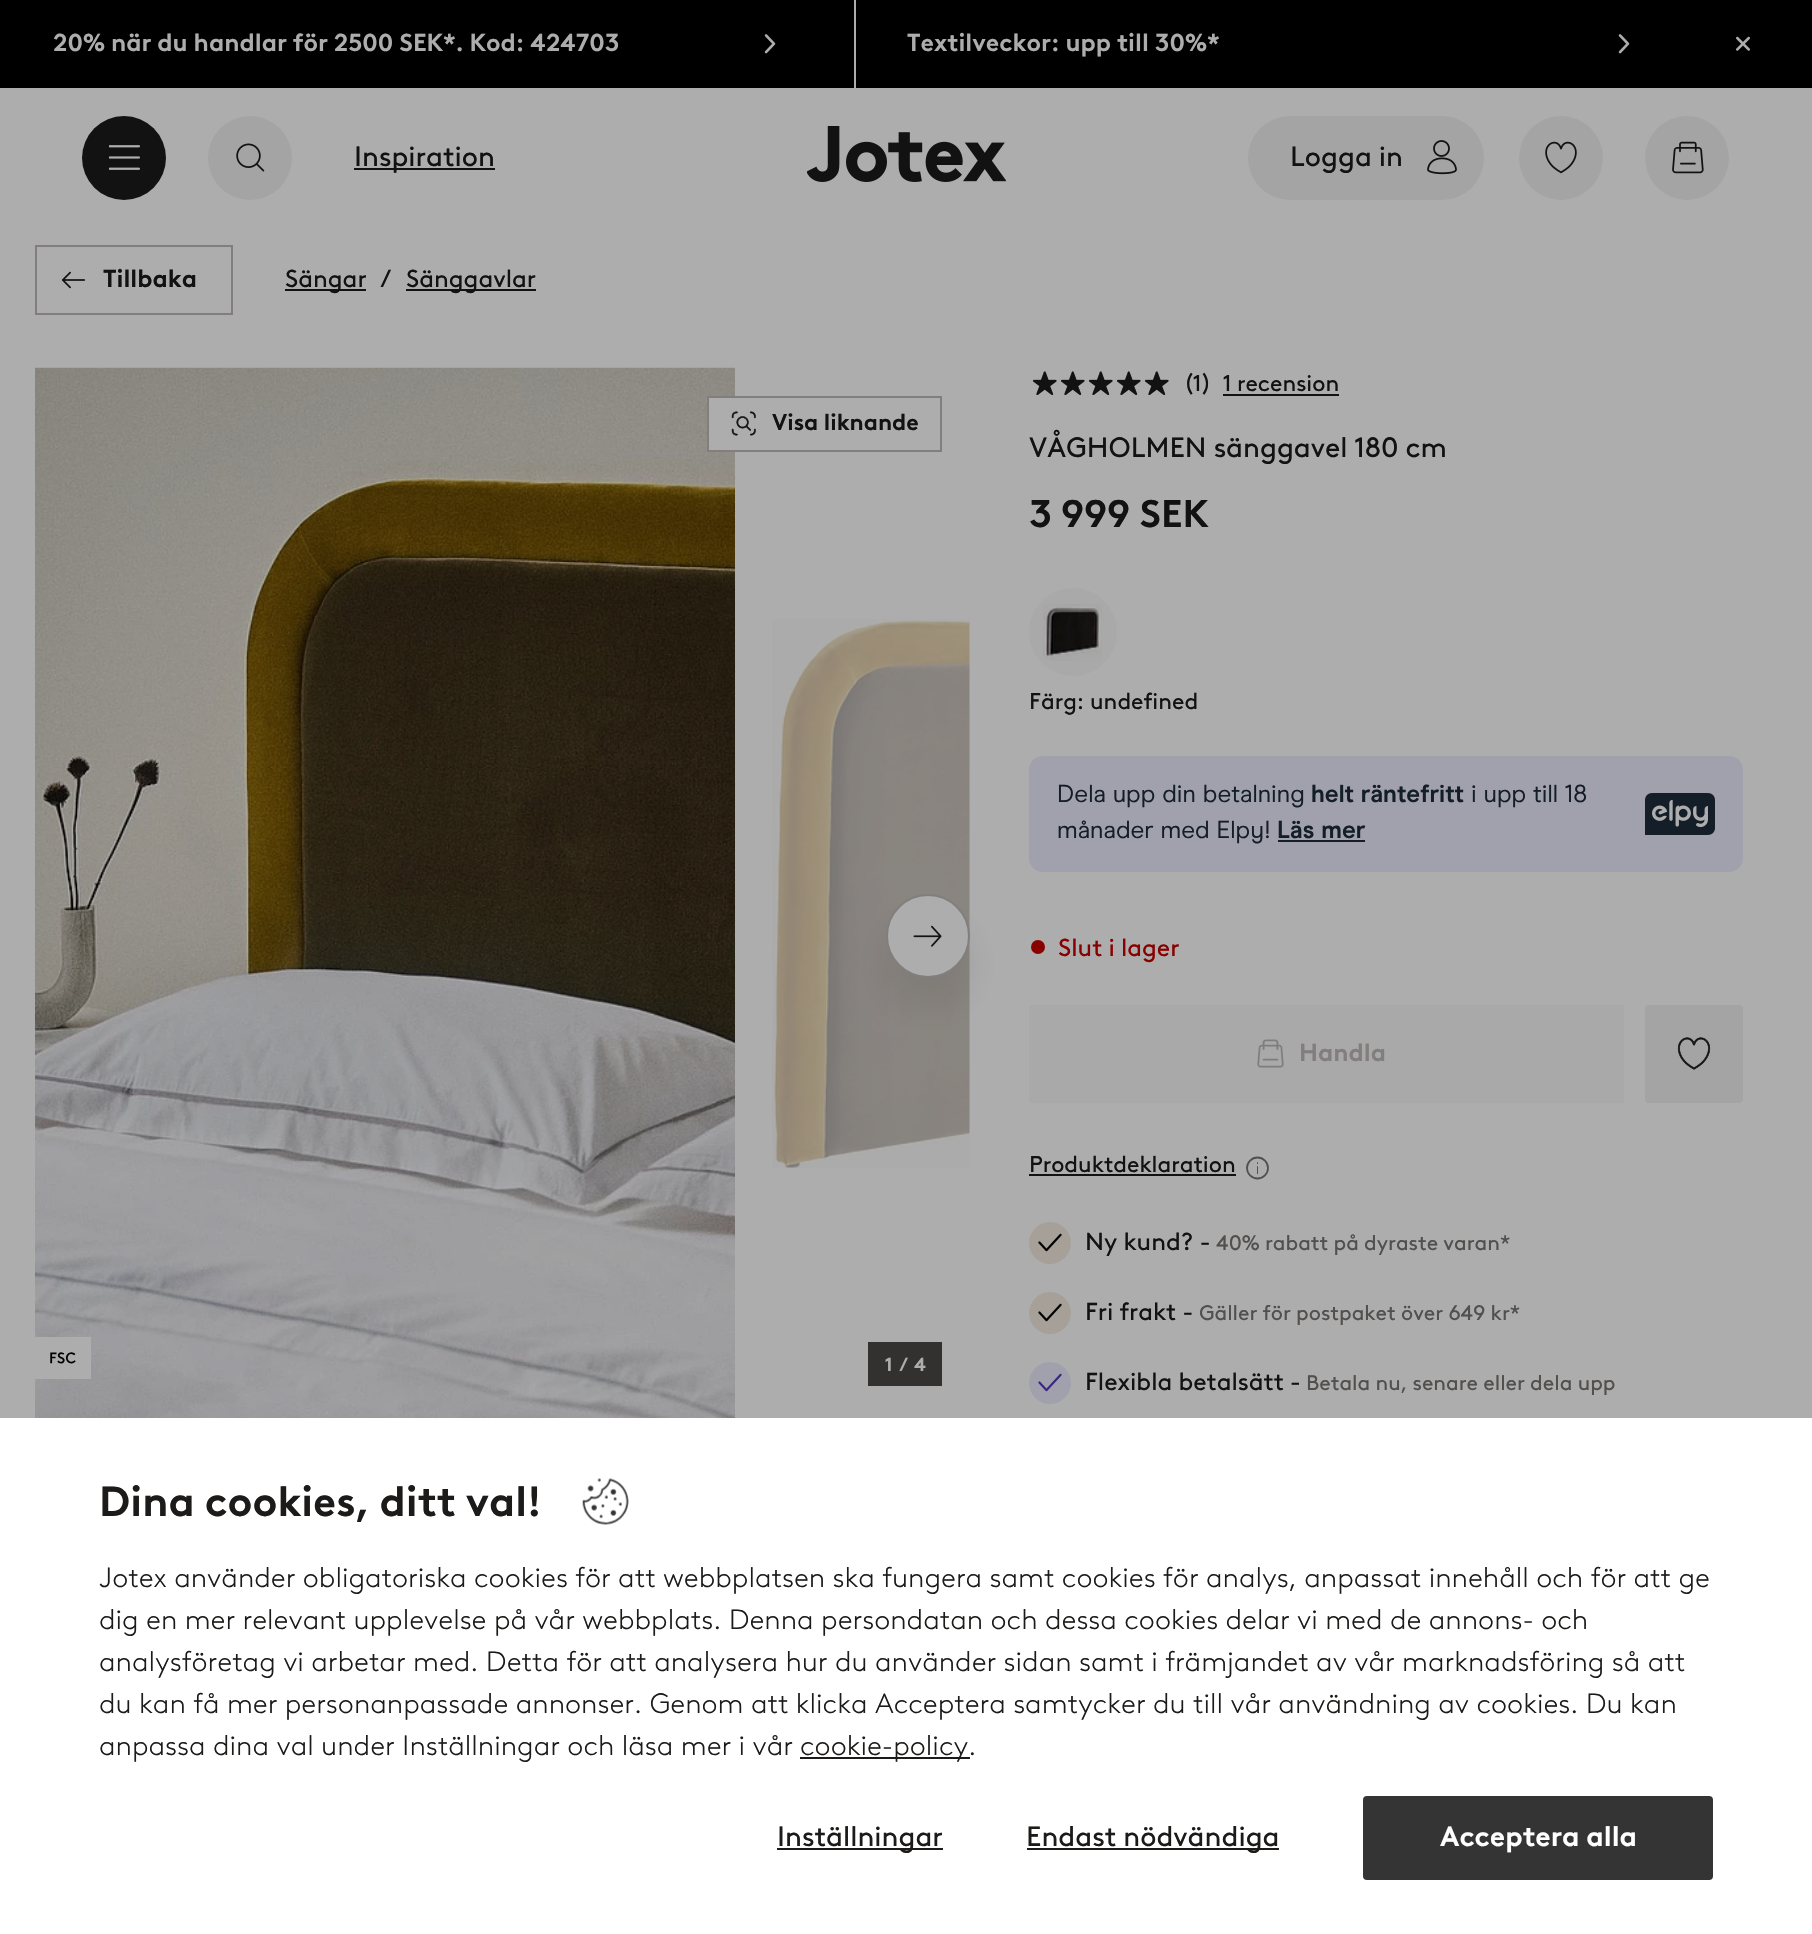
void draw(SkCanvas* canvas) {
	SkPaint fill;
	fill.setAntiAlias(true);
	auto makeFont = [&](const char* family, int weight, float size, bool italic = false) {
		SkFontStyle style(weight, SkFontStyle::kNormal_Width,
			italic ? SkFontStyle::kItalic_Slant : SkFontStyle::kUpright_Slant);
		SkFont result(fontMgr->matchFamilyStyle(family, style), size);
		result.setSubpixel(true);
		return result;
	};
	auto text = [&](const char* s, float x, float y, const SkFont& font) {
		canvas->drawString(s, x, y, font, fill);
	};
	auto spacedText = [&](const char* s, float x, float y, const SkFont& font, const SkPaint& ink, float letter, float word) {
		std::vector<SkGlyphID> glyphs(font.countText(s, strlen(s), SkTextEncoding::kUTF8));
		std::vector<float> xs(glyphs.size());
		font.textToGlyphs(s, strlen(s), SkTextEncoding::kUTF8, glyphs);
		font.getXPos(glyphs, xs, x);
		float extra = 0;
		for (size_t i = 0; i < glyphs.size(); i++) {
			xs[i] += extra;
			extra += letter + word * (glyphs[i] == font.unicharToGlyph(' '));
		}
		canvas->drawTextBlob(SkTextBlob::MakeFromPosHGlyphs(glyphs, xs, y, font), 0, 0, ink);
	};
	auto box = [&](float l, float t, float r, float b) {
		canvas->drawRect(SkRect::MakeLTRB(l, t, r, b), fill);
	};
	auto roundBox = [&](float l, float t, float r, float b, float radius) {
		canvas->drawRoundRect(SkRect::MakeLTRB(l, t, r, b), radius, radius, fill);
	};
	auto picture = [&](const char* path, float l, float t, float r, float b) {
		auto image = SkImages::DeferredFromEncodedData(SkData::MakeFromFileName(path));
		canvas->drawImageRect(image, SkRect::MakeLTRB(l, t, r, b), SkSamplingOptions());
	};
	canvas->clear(0xFFADADAD);
	fill.setColor(0xFF000000);
	box(0, 0, 1812, 88);
	fill.setColor(0xFFADADAD);
	box(854, 0, 856, 88);
	picture("image0.png", 764, 34, 776, 54);
	picture("image0.png", 1618, 34, 1630, 54);
	picture("image1.png", 1736, 36, 1750, 51);
	fill.setColor(0xFF131212);
	canvas->drawCircle(124, 158, 42, fill);
	picture("image2.png", 109, 145, 140, 170);
	fill.setColor(0xFFA5A4A4);
	canvas->drawCircle(250, 158, 42, fill);
	picture("image3.png", 236, 143, 265, 172);
	fill.setColor(0xFF131212);
	box(354, 168, 495, 170);
	picture("image4.png", 807, 126, 1006, 182);
	fill.setColor(0xFFA5A4A4);
	roundBox(1248, 116, 1484, 200, 42);
	picture("image5.png", 1427, 140, 1457, 175);
	canvas->drawCircle(1561, 158, 42, fill);
	picture("image6.png", 1545, 141, 1577, 174);
	canvas->drawCircle(1687, 158, 42, fill);
	picture("image7.png", 1672, 141, 1704, 174);
	fill.setStyle(SkPaint::kStroke_Style);
	fill.setStrokeWidth(2);
	fill.setColor(0xFF817E7D);
	canvas->drawRect(SkRect::MakeLTRB(36, 246, 232, 314), fill);
	picture("image8.png", 61, 271, 86, 289);
	fill.setStyle(SkPaint::kFill_Style);
	fill.setColor(0xFF131212);
	box(285, 289, 366, 291);
	box(406, 289, 536, 291);
	picture("image9.png", 35, 367, 735, 1418);
	picture("image10.png", 772, 619, 970, 1168);
	fill.setColor(0xFFADADAD);
	box(709, 398, 735, 450);
	fill.setStyle(SkPaint::kStroke_Style);
	fill.setColor(0xFF817E7D);
	canvas->drawRect(SkRect::MakeLTRB(708, 397, 941, 451), fill);
	picture("image11.png", 731, 411, 756, 436);
	fill.setStyle(SkPaint::kFill_Style);
	fill.setColor(0x1A131212);
	fill.setMaskFilter(SkMaskFilter::MakeBlur(kNormal_SkBlurStyle, 21));
	canvas->drawRoundRect(SkRect::MakeLTRB(886, 922, 970, 1006), 42, 42, fill);
	fill.setMaskFilter(nullptr);
	fill.setColor(0xFFADADAD);
	canvas->drawCircle(928, 936, 41, fill);
	fill.setStyle(SkPaint::kStroke_Style);
	fill.setColor(0xFF817E7D);
	canvas->drawCircle(928, 936, 41, fill);
	picture("image12.png", 913, 925, 942, 947);
	picture("image13.png", 35, 1337, 91, 1379);
	fill.setStyle(SkPaint::kFill_Style);
	fill.setColor(0xFF323130);
	box(868, 1342, 942, 1386);
	picture("image14.png", 1033, 371, 1057, 395);
	picture("image14.png", 1061, 371, 1085, 395);
	picture("image14.png", 1089, 371, 1113, 395);
	picture("image14.png", 1117, 371, 1141, 395);
	picture("image14.png", 1145, 371, 1169, 395);
	picture("image15.png", 1033, 371, 1057, 395);
	picture("image15.png", 1061, 371, 1085, 395);
	picture("image15.png", 1089, 371, 1113, 395);
	picture("image15.png", 1117, 371, 1141, 395);
	picture("image15.png", 1145, 371, 1169, 395);
	fill.setColor(0xFF131212);
	box(1223, 394, 1339, 396);
	fill.setColor(0xFFA9A9A9);
	canvas->drawCircle(1073, 632, 44, fill);
	picture("image16.png", 1043, 604, 1102, 661);
	fill.setColor(0xFFA1A1AD);
	roundBox(1029, 756, 1743, 872, 14);
	fill.setColor(0xFF141E29);
	box(1278, 840, 1365, 842);
	canvas->drawPath(SkPathBuilder().moveTo(1652, 793).lineTo(1708, 793).cubicTo(1712, 793, 1715, 796, 1715, 800).lineTo(1715, 828).cubicTo(1715, 832, 1712, 835, 1708, 835).lineTo(1645, 835).lineTo(1645, 800).cubicTo(1645, 796, 1648, 793, 1652, 793).close().detach(), fill);
	picture("image17.png", 1652, 800, 1708, 828);
	fill.setColor(0xFF890000);
	canvas->drawCircle(1038, 947, 7, fill);
	fill.setColor(0xFFA9A9A9);
	box(1029, 1005, 1624, 1103);
	picture("image18.png", 1257, 1039, 1284, 1068);
	fill.setColor(0xFFA5A4A4);
	roundBox(1645, 1005, 1743, 1103, 4);
	picture("image19.png", 1677, 1037, 1711, 1070);
	fill.setColor(0xFF131212);
	box(1029, 1174, 1236, 1176);
	fill.setStyle(SkPaint::kStroke_Style);
	fill.setStrokeWidth(1.8f);
	fill.setColor(0xFF505050);
	canvas->drawCircle(1257.5f, 1168, 10.5f, fill);
	fill.setStyle(SkPaint::kFill_Style);
	roundBox(1257, 1166, 1258, 1174, 0.5f);
	roundBox(1257, 1162, 1258, 1164, 0.5f);
	fill.setColor(0xFFA6A099);
	canvas->drawCircle(1050, 1243, 21, fill);
	picture("image20.png", 1038, 1233, 1062, 1252);
	canvas->drawCircle(1050, 1313, 21, fill);
	picture("image20.png", 1038, 1303, 1062, 1322);
	fill.setColor(0xFFA1A1AD);
	canvas->drawCircle(1050, 1383, 21, fill);
	picture("image21.png", 1038, 1373, 1062, 1392);
	fill.setColor(0xFFFFFFFF);
	box(0, 1418, 1812, 1934);
	picture("image22.png", 582, 1478, 629, 1525);
	fill.setColor(0xFF1C1B1A);
	box(800, 1757, 970, 1759);
	box(777, 1848, 943, 1850);
	box(1027, 1848, 1279, 1850);
	fill.setColor(0xFF343434);
	roundBox(1363, 1796, 1713, 1880, 4);
	auto font1 = makeFont("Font", 700, 24.5f);
	fill.setColor(0xFFADADAD);
	text("20% när du handlar för 2500 SEK*. Kod: 424703", 53, 51, font1);
	text("Textilveckor: upp till 30%*", 907, 51, font1);
	auto font2 = makeFont("Font", 400, 28);
	fill.setColor(0xFF131212);
	text("Inspiration", 354, 166, font2);
	text("Logga in", 1290, 166, font2);
	text("Tillbaka", 103, 287, font1);
	auto font3 = makeFont("Font", 400, 24.5f);
	text("Sängar", 285, 287, font3);
	text("/", 380, 287, font3);
	text("Sänggavlar", 406, 287, font3);
	auto font4 = makeFont("Font", 700, 22.75f);
	text("Visa liknande", 772, 430, font4);
	auto font5 = makeFont("Font", 700, 19);
	fill.setColor(0xFFADADAD);
	spacedText("1", 885, 1371, font5, fill, 3, 0);
	spacedText("/", 899, 1371, font5, fill, 3, 0);
	spacedText("4", 914, 1371, font5, fill, 3, 0);
	auto font6 = makeFont("Font", 400, 22.75f);
	fill.setColor(0xFF131212);
	text("(", 1186, 389, font6);
	text("1", 1193, 391, font6);
	text(")", 1202, 389, font6);
	text("1 recension", 1223, 391, font6);
	text("VÅGHOLMEN sänggavel 180 cm", 1029, 457, font2);
	auto font7 = makeFont("Font", 700, 38.5f);
	text("3 999 SEK", 1029, 527, font7);
	text("Färg: undefined", 1029, 709, font6);
	auto font8 = makeFont("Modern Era", 400, 24.5f);
	fill.setColor(0xFF141E29);
	text("Dela upp din betalning", 1057, 802, font8);
	auto font9 = makeFont("Modern Era", 700, 24.5f);
	text("helt räntefritt", 1311, 802, font9);
	text("i upp till 18", 1471, 802, font8);
	text("månader med Elpy!", 1057, 838, font8);
	text("Läs mer", 1277, 838, font9);
	fill.setColor(0xFF890000);
	text("Slut i lager", 1058, 956, font3);
	fill.setColor(0xFF817E7D);
	text("Handla", 1299, 1061, font1);
	fill.setColor(0xFF131212);
	text("Produktdeklaration", 1029, 1172, font6);
	text("Ny kund? -", 1085, 1250, font3);
	auto font10 = makeFont("Font", 400, 21);
	fill.setColor(0xFF52504E);
	text("40% rabatt på dyraste varan*", 1216, 1250, font10);
	fill.setColor(0xFF131212);
	text("Fri frakt -", 1085, 1320, font3);
	fill.setColor(0xFF52504E);
	text("Gäller för postpaket över 649 kr*", 1199, 1320, font10);
	fill.setColor(0xFF131212);
	text("Flexibla betalsätt -", 1085, 1390, font3);
	fill.setColor(0xFF52504E);
	text("Betala nu, senare eller dela upp", 1306, 1390, font10);
	auto font11 = makeFont("Font", 700, 42);
	fill.setColor(0xFF1C1B1A);
	text("Dina cookies, ditt val!", 99, 1516, font11);
	auto font12 = makeFont("Font", 300, 28);
	text("Jotex använder obligatoriska cookies för att webbplatsen ska fungera samt cookies för analys, anpassat innehåll och för att ge", 99, 1587, font12);
	text("dig en mer relevant upplevelse på vår webbplats. Denna persondatan och dessa cookies delar vi med de annons- och", 99, 1629, font12);
	text("analysföretag vi arbetar med. Detta för att analysera hur du använder sidan samt i främjandet av vår marknadsföring så att", 99, 1671, font12);
	text("du kan få mer personanpassade annonser. Genom att klicka Acceptera samtycker du till vår användning av cookies. Du kan", 99, 1713, font12);
	text("anpassa dina val under Inställningar och läsa mer i vår", 99, 1755, font12);
	text("cookie-policy.", 800, 1755, font12);
	text("Inställningar", 777, 1846, font2);
	text("Endast nödvändiga", 1026, 1846, font2);
	auto font13 = makeFont("Font", 700, 28);
	fill.setColor(0xFFFFFFFF);
	text("Acceptera alla", 1440, 1846, font13);
}
